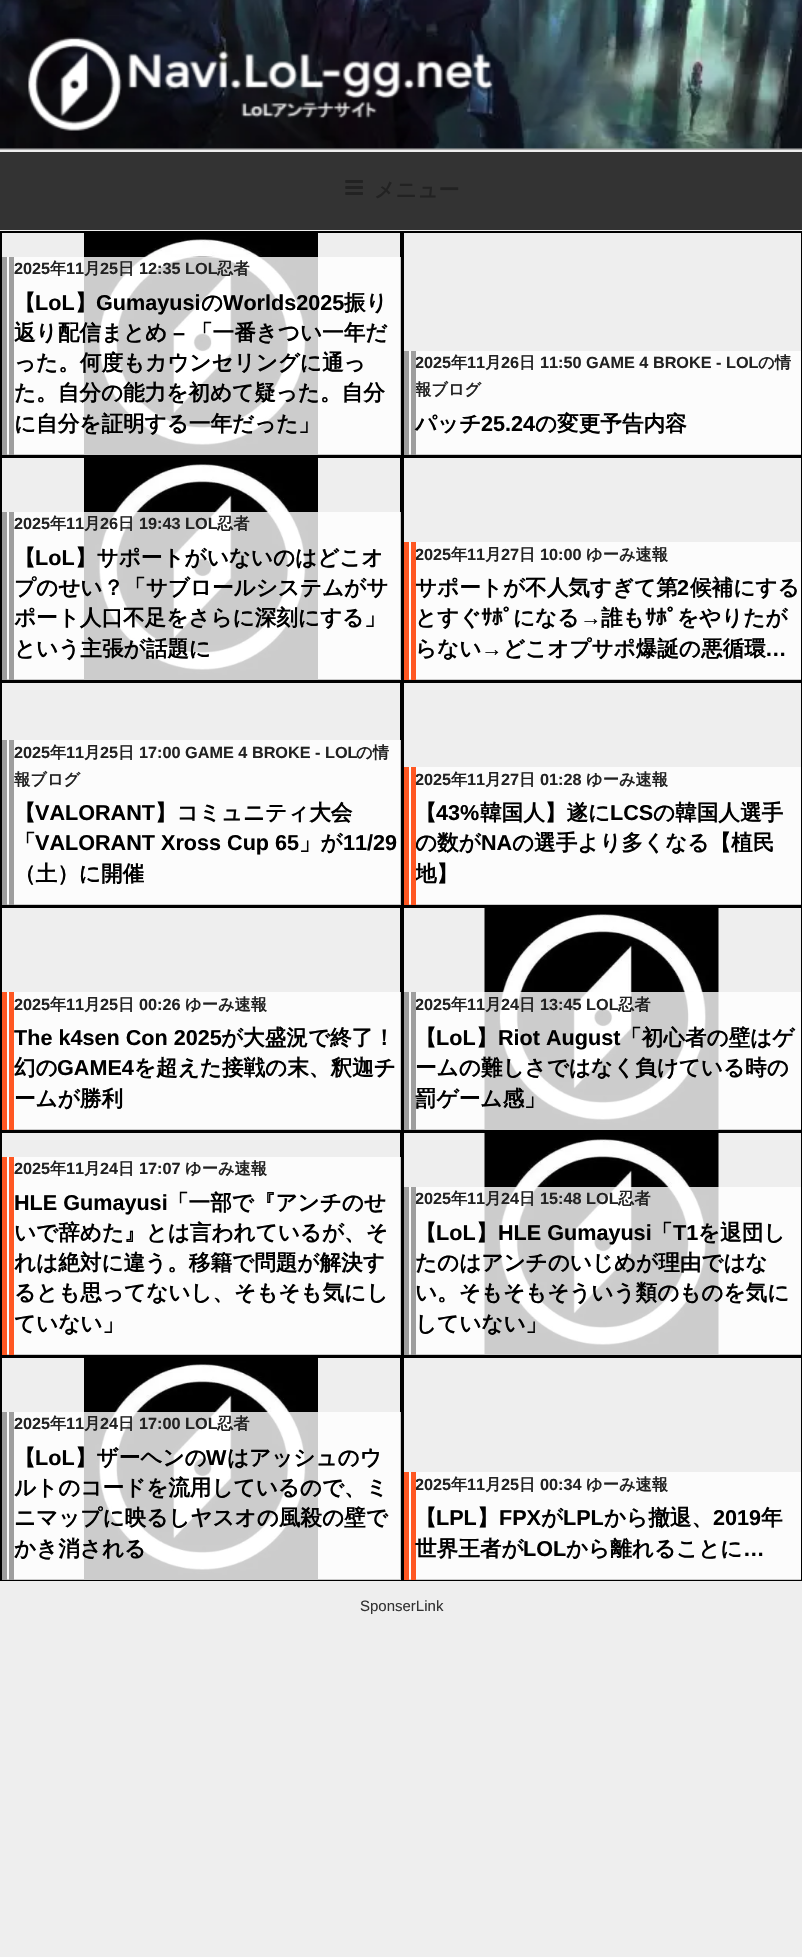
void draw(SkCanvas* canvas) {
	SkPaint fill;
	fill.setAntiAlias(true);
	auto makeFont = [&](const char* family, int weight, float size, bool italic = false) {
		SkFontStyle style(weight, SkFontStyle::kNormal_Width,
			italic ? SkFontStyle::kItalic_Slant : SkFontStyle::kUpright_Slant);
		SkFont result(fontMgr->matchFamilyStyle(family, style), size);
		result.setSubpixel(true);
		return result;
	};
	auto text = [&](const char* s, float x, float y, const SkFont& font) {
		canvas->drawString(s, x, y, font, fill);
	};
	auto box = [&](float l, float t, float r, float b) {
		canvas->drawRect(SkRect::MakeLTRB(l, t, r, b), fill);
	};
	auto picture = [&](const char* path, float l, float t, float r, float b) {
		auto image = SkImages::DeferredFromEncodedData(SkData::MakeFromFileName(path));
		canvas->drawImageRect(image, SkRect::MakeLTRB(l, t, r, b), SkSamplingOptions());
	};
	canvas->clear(0xFFFAFAFA);
	picture("image0.png", 0, 0, 802, 149);
	{
		const SkColor colors[] = {0x00000000, 0x4D000000, 0x4D000000};
		const float stops[] = {0, 0.75f, 1};
		const SkPoint ends[] = {{401, 0}, {401, 150}};
		fill.setShader(SkGradientShader::MakeLinear(ends, colors, stops, 3, SkTileMode::kClamp));
		fill.setAlpha(255);
	}
	box(0, 8, 802, 150);
	picture("image1.png", 28, 37, 493, 131);
	fill.setShader(nullptr);
	fill.setColor(0xFF333333);
	box(0, 152, 802, 230);
	fill.setColor(0xFFEEEEEE);
	box(0, 150, 802, 152);
	box(0, 230, 802, 231);
	picture("image2.png", 345, 180, 363, 195);
	box(0, 233, 802, 1957);
	fill.setStyle(SkPaint::kStroke_Style);
	fill.setStrokeWidth(2);
	fill.setColor(0xFF000000);
	canvas->drawRect(SkRect::MakeLTRB(1, 232, 401, 455), fill);
	picture("image3.png", 84, 233, 318, 454);
	fill.setStyle(SkPaint::kFill_Style);
	fill.setColor(0xCCFFFFFF);
	box(7, 257, 401, 455);
	fill.setColor(0xFF9E9E9E);
	box(2, 257, 7, 455);
	box(9, 257, 14, 455);
	fill.setStyle(SkPaint::kStroke_Style);
	fill.setColor(0xFF000000);
	canvas->drawRect(SkRect::MakeLTRB(403, 232, 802, 455), fill);
	fill.setStyle(SkPaint::kFill_Style);
	fill.setColor(0xCCFFFFFF);
	box(409, 351, 801, 455);
	fill.setColor(0xFF9E9E9E);
	box(404, 351, 409, 455);
	box(411, 351, 416, 455);
	fill.setStyle(SkPaint::kStroke_Style);
	fill.setColor(0xFF000000);
	canvas->drawRect(SkRect::MakeLTRB(1, 457, 401, 680), fill);
	picture("image3.png", 84, 458, 318, 679);
	fill.setStyle(SkPaint::kFill_Style);
	fill.setColor(0xCCFFFFFF);
	box(7, 512, 401, 680);
	fill.setColor(0xFF9E9E9E);
	box(2, 512, 7, 680);
	box(9, 512, 14, 680);
	fill.setStyle(SkPaint::kStroke_Style);
	fill.setColor(0xFF000000);
	canvas->drawRect(SkRect::MakeLTRB(403, 457, 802, 680), fill);
	fill.setStyle(SkPaint::kFill_Style);
	fill.setColor(0xCCFFFFFF);
	box(409, 542, 801, 680);
	fill.setColor(0xFFFF5722);
	box(404, 542, 409, 680);
	box(411, 542, 416, 680);
	fill.setStyle(SkPaint::kStroke_Style);
	fill.setColor(0xFF000000);
	canvas->drawRect(SkRect::MakeLTRB(1, 682, 401, 905), fill);
	fill.setStyle(SkPaint::kFill_Style);
	fill.setColor(0xCCFFFFFF);
	box(7, 740, 401, 905);
	fill.setColor(0xFF9E9E9E);
	box(2, 740, 7, 905);
	box(9, 740, 14, 905);
	fill.setStyle(SkPaint::kStroke_Style);
	fill.setColor(0xFF000000);
	canvas->drawRect(SkRect::MakeLTRB(403, 682, 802, 905), fill);
	fill.setStyle(SkPaint::kFill_Style);
	fill.setColor(0xCCFFFFFF);
	box(409, 767, 801, 905);
	fill.setColor(0xFFFF5722);
	box(404, 767, 409, 905);
	box(411, 767, 416, 905);
	fill.setStyle(SkPaint::kStroke_Style);
	fill.setColor(0xFF000000);
	canvas->drawRect(SkRect::MakeLTRB(1, 907, 401, 1130), fill);
	fill.setStyle(SkPaint::kFill_Style);
	fill.setColor(0xCCFFFFFF);
	box(7, 992, 401, 1130);
	fill.setColor(0xFFFF5722);
	box(2, 992, 7, 1130);
	box(9, 992, 14, 1130);
	fill.setStyle(SkPaint::kStroke_Style);
	fill.setColor(0xFF000000);
	canvas->drawRect(SkRect::MakeLTRB(403, 907, 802, 1130), fill);
	picture("image4.png", 484, 908, 719, 1129);
	fill.setStyle(SkPaint::kFill_Style);
	fill.setColor(0xCCFFFFFF);
	box(409, 992, 801, 1130);
	fill.setColor(0xFF9E9E9E);
	box(404, 992, 409, 1130);
	box(411, 992, 416, 1130);
	fill.setStyle(SkPaint::kStroke_Style);
	fill.setColor(0xFF000000);
	canvas->drawRect(SkRect::MakeLTRB(1, 1132, 401, 1355), fill);
	fill.setStyle(SkPaint::kFill_Style);
	fill.setColor(0xCCFFFFFF);
	box(7, 1157, 401, 1355);
	fill.setColor(0xFFFF5722);
	box(2, 1157, 7, 1355);
	box(9, 1157, 14, 1355);
	fill.setStyle(SkPaint::kStroke_Style);
	fill.setColor(0xFF000000);
	canvas->drawRect(SkRect::MakeLTRB(403, 1132, 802, 1355), fill);
	picture("image4.png", 484, 1133, 719, 1354);
	fill.setStyle(SkPaint::kFill_Style);
	fill.setColor(0xCCFFFFFF);
	box(409, 1187, 801, 1355);
	fill.setColor(0xFF9E9E9E);
	box(404, 1187, 409, 1355);
	box(411, 1187, 416, 1355);
	fill.setStyle(SkPaint::kStroke_Style);
	fill.setColor(0xFF000000);
	canvas->drawRect(SkRect::MakeLTRB(1, 1357, 401, 1580), fill);
	picture("image3.png", 84, 1358, 318, 1579);
	fill.setStyle(SkPaint::kFill_Style);
	fill.setColor(0xCCFFFFFF);
	box(7, 1412, 401, 1580);
	fill.setColor(0xFF9E9E9E);
	box(2, 1412, 7, 1580);
	box(9, 1412, 14, 1580);
	fill.setStyle(SkPaint::kStroke_Style);
	fill.setColor(0xFF000000);
	canvas->drawRect(SkRect::MakeLTRB(403, 1357, 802, 1580), fill);
	fill.setStyle(SkPaint::kFill_Style);
	fill.setColor(0xCCFFFFFF);
	box(409, 1472, 801, 1580);
	fill.setColor(0xFFFF5722);
	box(404, 1472, 409, 1580);
	box(411, 1472, 416, 1580);
	auto font1 = makeFont("WenQuanYi Zen Hei", 700, 21);
	fill.setColor(0xFF222222);
	text("メニュー", 374, 197, font1);
	auto font2 = makeFont("Liberation Sans", 700, 16.25f);
	text("2025", 14, 274, font2);
	auto font3 = makeFont("WenQuanYi Zen Hei", 700, 16.25f);
	text("年", 50, 274, font3);
	text("11", 66, 274, font2);
	text("月", 84, 274, font3);
	text("25", 100, 274, font2);
	text("日", 118, 274, font3);
	text("12:35 LOL", 139, 274, font2);
	text("忍者", 217, 274, font3);
	auto font4 = makeFont("WenQuanYi Zen Hei", 700, 21.6f);
	fill.setColor(0xFF000000);
	text("【", 14, 310, font4);
	auto font5 = makeFont("Liberation Sans", 700, 21.6f);
	text("LoL", 35, 310, font5);
	text("】", 75, 310, font4);
	text("Gumayusi", 96, 310, font5);
	text("の", 201, 310, font4);
	text("Worlds2025", 223, 310, font5);
	text("振り", 344, 310, font4);
	text("返り配信まとめ", 14, 340, font4);
	text("–", 173, 340, font5);
	text("「一番きつい一年だ", 191, 340, font4);
	text("った。何度もカウンセリングに通っ", 14, 370, font4);
	text("た。自分の能力を初めて疑った。自分", 14, 400, font4);
	text("に自分を証明する一年だった」", 14, 431, font4);
	canvas->save();
	canvas->clipRect(SkRect::MakeLTRB(416, 351, 801, 455));
	fill.setColor(0xFF222222);
	text("2025", 415, 368, font2);
	canvas->restore();
	text("年", 451, 368, font3);
	text("11", 467, 368, font2);
	text("月", 485, 368, font3);
	text("26", 501, 368, font2);
	text("日", 519, 368, font3);
	text("11:50 GAME 4 BROKE - LOL", 540, 368, font2);
	text("の情", 758, 368, font3);
	canvas->save();
	canvas->clipRect(SkRect::MakeLTRB(416, 351, 801, 455));
	text("報ブログ", 415, 395, font3);
	canvas->restore();
	fill.setColor(0xFF000000);
	text("パッチ", 415, 431, font4);
	text("25.24", 481, 431, font5);
	text("の変更予告内容", 535, 431, font4);
	fill.setColor(0xFF222222);
	text("2025", 14, 529, font2);
	text("年", 50, 529, font3);
	text("11", 66, 529, font2);
	text("月", 84, 529, font3);
	text("26", 100, 529, font2);
	text("日", 118, 529, font3);
	text("19:43 LOL", 139, 529, font2);
	text("忍者", 217, 529, font3);
	fill.setColor(0xFF000000);
	text("【", 14, 565, font4);
	text("LoL", 35, 565, font5);
	text("】サポートがいないのはどこオ", 75, 565, font4);
	text("プのせい？「サブロールシステムがサ", 14, 595, font4);
	text("ポート人口不足をさらに深刻にする」", 14, 625, font4);
	text("という主張が話題に", 14, 656, font4);
	canvas->save();
	canvas->clipRect(SkRect::MakeLTRB(416, 542, 801, 680));
	fill.setColor(0xFF222222);
	text("2025", 415, 560, font2);
	canvas->restore();
	text("年", 451, 560, font3);
	text("11", 467, 560, font2);
	text("月", 485, 560, font3);
	text("27", 501, 560, font2);
	text("日", 519, 560, font3);
	text("10:00", 540, 560, font2);
	text("ゆーみ速報", 586, 560, font3);
	fill.setColor(0xFF000000);
	text("サポートが不人気すぎて第", 415, 595, font4);
	text("2", 677, 595, font5);
	text("候補にする", 690, 595, font4);
	text("とすぐ", 415, 625, font4);
	auto font6 = makeFont("IPAPGothic", 700, 21.6f);
	text("ｻﾎﾟ", 481, 625, font6);
	text("になる", 513, 625, font4);
	text("→", 580, 625, font5);
	text("誰も", 601, 625, font4);
	text("ｻﾎﾟ", 645, 625, font6);
	text("をやりたが", 677, 625, font4);
	text("らない", 415, 656, font4);
	text("→", 481, 656, font5);
	text("どこオプサポ爆誕の悪循環", 503, 656, font4);
	text("…", 765, 656, font5);
	fill.setColor(0xFF222222);
	text("2025", 14, 758, font2);
	text("年", 50, 758, font3);
	text("11", 66, 758, font2);
	text("月", 84, 758, font3);
	text("25", 100, 758, font2);
	text("日", 118, 758, font3);
	text("17:00 GAME 4 BROKE - LOL", 139, 758, font2);
	text("の情", 356, 758, font3);
	text("報ブログ", 14, 785, font3);
	fill.setColor(0xFF000000);
	text("【", 14, 820, font4);
	text("VALORANT", 35, 820, font5);
	text("】コミュニティ大会", 155, 820, font4);
	text("「", 14, 850, font4);
	text("VALORANT Xross Cup 65", 35, 850, font5);
	text("」が", 299, 850, font4);
	text("11/29", 343, 850, font5);
	text("（土）に開催", 14, 881, font4);
	canvas->save();
	canvas->clipRect(SkRect::MakeLTRB(416, 767, 801, 905));
	fill.setColor(0xFF222222);
	text("2025", 415, 785, font2);
	canvas->restore();
	text("年", 451, 785, font3);
	text("11", 467, 785, font2);
	text("月", 485, 785, font3);
	text("27", 501, 785, font2);
	text("日", 519, 785, font3);
	text("01:28", 540, 785, font2);
	text("ゆーみ速報", 586, 785, font3);
	fill.setColor(0xFF000000);
	text("【", 415, 820, font4);
	text("43%", 436, 820, font5);
	text("韓国人】遂に", 480, 820, font4);
	text("LCS", 610, 820, font5);
	text("の韓国人選手", 653, 820, font4);
	canvas->save();
	canvas->clipRect(SkRect::MakeLTRB(416, 767, 801, 905));
	text("の数が", 415, 850, font4);
	canvas->restore();
	text("NA", 481, 850, font5);
	text("の選手より多くなる【植民", 512, 850, font4);
	canvas->save();
	canvas->clipRect(SkRect::MakeLTRB(416, 767, 801, 905));
	text("地】", 415, 881, font4);
	canvas->restore();
	fill.setColor(0xFF222222);
	text("2025", 14, 1010, font2);
	text("年", 50, 1010, font3);
	text("11", 66, 1010, font2);
	text("月", 84, 1010, font3);
	text("25", 100, 1010, font2);
	text("日", 118, 1010, font3);
	text("00:26", 139, 1010, font2);
	text("ゆーみ速報", 185, 1010, font3);
	canvas->save();
	canvas->clipRect(SkRect::MakeLTRB(14, 992, 401, 1130));
	fill.setColor(0xFF000000);
	text("The k4sen Con 2025", 14, 1045, font5);
	canvas->restore();
	text("が大盛況で終了！", 221, 1045, font4);
	text("幻の", 14, 1075, font4);
	text("GAME4", 57, 1075, font5);
	text("を超えた接戦の末、釈迦チ", 134, 1075, font4);
	text("ームが勝利", 14, 1106, font4);
	canvas->save();
	canvas->clipRect(SkRect::MakeLTRB(416, 992, 801, 1130));
	fill.setColor(0xFF222222);
	text("2025", 415, 1010, font2);
	canvas->restore();
	text("年", 451, 1010, font3);
	text("11", 467, 1010, font2);
	text("月", 485, 1010, font3);
	text("24", 501, 1010, font2);
	text("日", 519, 1010, font3);
	text("13:45 LOL", 540, 1010, font2);
	text("忍者", 618, 1010, font3);
	fill.setColor(0xFF000000);
	text("【", 415, 1045, font4);
	text("LoL", 436, 1045, font5);
	text("】", 476, 1045, font4);
	text("Riot August", 498, 1045, font5);
	text("「初心者の壁はゲ", 620, 1045, font4);
	text("ームの難しさではなく負けている時の", 415, 1075, font4);
	text("罰ゲーム感」", 415, 1106, font4);
	fill.setColor(0xFF222222);
	text("2025", 14, 1174, font2);
	text("年", 50, 1174, font3);
	text("11", 66, 1174, font2);
	text("月", 84, 1174, font3);
	text("24", 100, 1174, font2);
	text("日", 118, 1174, font3);
	text("17:07", 139, 1174, font2);
	text("ゆーみ速報", 185, 1174, font3);
	fill.setColor(0xFF000000);
	text("HLE Gumayusi", 14, 1210, font5);
	text("「一部で『アンチのせ", 167, 1210, font4);
	text("いで辞めた』とは言われているが、そ", 14, 1240, font4);
	text("れは絶対に違う。移籍で問題が解決す", 14, 1270, font4);
	text("るとも思ってないし、そもそも気にし", 14, 1300, font4);
	text("ていない」", 14, 1331, font4);
	canvas->save();
	canvas->clipRect(SkRect::MakeLTRB(416, 1187, 801, 1355));
	fill.setColor(0xFF222222);
	text("2025", 415, 1204, font2);
	canvas->restore();
	text("年", 451, 1204, font3);
	text("11", 467, 1204, font2);
	text("月", 485, 1204, font3);
	text("24", 501, 1204, font2);
	text("日", 519, 1204, font3);
	text("15:48 LOL", 540, 1204, font2);
	text("忍者", 618, 1204, font3);
	fill.setColor(0xFF000000);
	text("【", 415, 1240, font4);
	text("LoL", 436, 1240, font5);
	text("】", 476, 1240, font4);
	text("HLE Gumayusi", 498, 1240, font5);
	text("「", 651, 1240, font4);
	text("T1", 673, 1240, font5);
	text("を退団し", 698, 1240, font4);
	text("たのはアンチのいじめが理由ではな", 415, 1270, font4);
	text("い。そもそもそういう類のものを気に", 415, 1300, font4);
	text("していない」", 415, 1331, font4);
	fill.setColor(0xFF222222);
	text("2025", 14, 1429, font2);
	text("年", 50, 1429, font3);
	text("11", 66, 1429, font2);
	text("月", 84, 1429, font3);
	text("24", 100, 1429, font2);
	text("日", 118, 1429, font3);
	text("17:00 LOL", 139, 1429, font2);
	text("忍者", 217, 1429, font3);
	fill.setColor(0xFF000000);
	text("【", 14, 1465, font4);
	text("LoL", 35, 1465, font5);
	text("】ザーヘンの", 75, 1465, font4);
	text("W", 206, 1465, font5);
	text("はアッシュのウ", 227, 1465, font4);
	text("ルトのコードを流用しているので、ミ", 14, 1495, font4);
	text("ニマップに映るしヤスオの風殺の壁で", 14, 1525, font4);
	text("かき消される", 14, 1556, font4);
	canvas->save();
	canvas->clipRect(SkRect::MakeLTRB(416, 1472, 801, 1580));
	fill.setColor(0xFF222222);
	text("2025", 415, 1490, font2);
	canvas->restore();
	text("年", 451, 1490, font3);
	text("11", 467, 1490, font2);
	text("月", 485, 1490, font3);
	text("25", 501, 1490, font2);
	text("日", 519, 1490, font3);
	text("00:34", 540, 1490, font2);
	text("ゆーみ速報", 586, 1490, font3);
	fill.setColor(0xFF000000);
	text("【", 415, 1525, font4);
	text("LPL", 436, 1525, font5);
	text("】", 477, 1525, font4);
	text("FPX", 499, 1525, font5);
	text("が", 541, 1525, font4);
	text("LPL", 563, 1525, font5);
	text("から撤退、", 604, 1525, font4);
	text("2019", 713, 1525, font5);
	text("年", 761, 1525, font4);
	text("世界王者が", 415, 1556, font4);
	text("LOL", 523, 1556, font5);
	text("から離れることに", 566, 1556, font4);
	text("…", 743, 1556, font5);
	auto font7 = makeFont("Liberation Sans", 400, 15);
	fill.setColor(0xFF333333);
	text("SponserLink", 360, 1611, font7);
}
